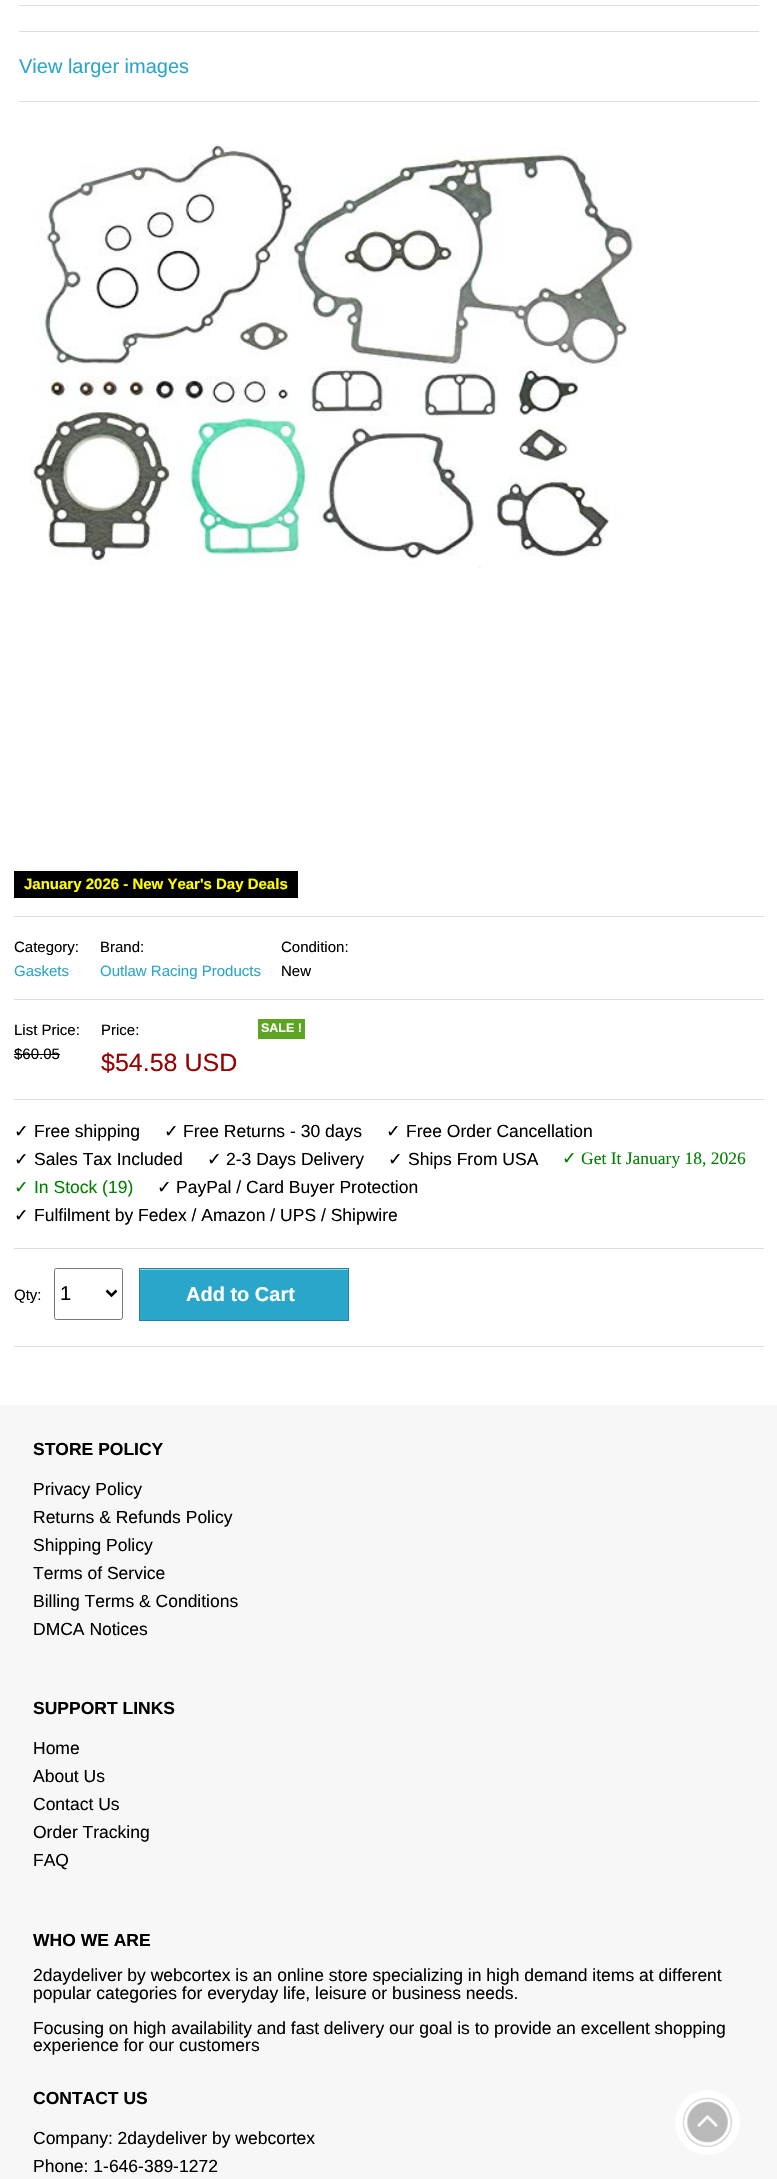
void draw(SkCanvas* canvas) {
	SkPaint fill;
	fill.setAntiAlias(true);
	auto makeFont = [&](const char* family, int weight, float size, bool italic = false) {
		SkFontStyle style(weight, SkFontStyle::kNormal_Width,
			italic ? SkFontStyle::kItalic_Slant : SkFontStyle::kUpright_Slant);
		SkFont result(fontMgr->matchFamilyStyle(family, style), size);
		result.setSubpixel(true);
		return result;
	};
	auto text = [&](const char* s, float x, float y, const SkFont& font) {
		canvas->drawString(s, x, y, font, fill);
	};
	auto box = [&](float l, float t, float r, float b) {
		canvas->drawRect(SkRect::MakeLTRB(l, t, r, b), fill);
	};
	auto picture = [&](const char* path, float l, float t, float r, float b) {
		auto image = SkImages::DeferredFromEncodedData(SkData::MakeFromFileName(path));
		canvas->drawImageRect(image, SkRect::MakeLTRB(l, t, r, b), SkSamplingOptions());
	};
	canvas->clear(0xFFFFFFFF);
	fill.setColor(0xFFDDDDDD);
	box(19, 5, 759, 6);
	box(19, 31, 759, 32);
	box(19, 101, 759, 102);
	picture("image0.png", 29, 143, 639, 569);
	fill.setColor(0xFF000000);
	box(14, 871, 298, 898);
	fill.setColor(0xFFDDDDDD);
	box(14, 916, 764, 917);
	box(14, 999, 764, 1000);
	fill.setColor(0xFF000000);
	box(14, 1054, 60, 1055);
	fill.setColor(0xFF5DA423);
	box(258, 1019, 305, 1039);
	fill.setColor(0xFFDDDDDD);
	box(14, 1099, 764, 1100);
	box(14, 1248, 764, 1249);
	fill.setStyle(SkPaint::kStroke_Style);
	fill.setStrokeWidth(1);
	fill.setColor(0xFF767676);
	canvas->drawRoundRect(SkRect::MakeLTRB(54.5f, 1268.5f, 122.5f, 1319.5f), 2, 2, fill);
	fill.setStrokeWidth(2.5f);
	fill.setColor(0xFF000000);
	canvas->drawPath(SkPathBuilder().moveTo(106.5f, 1290.5f).lineTo(111.5f, 1295.5f).lineTo(116.5f, 1290.5f).detach(), fill);
	fill.setStyle(SkPaint::kFill_Style);
	fill.setColor(0xFF2BA6CB);
	box(140, 1270, 348, 1320);
	fill.setColor(0xFF95D3E5);
	box(140, 1269, 348, 1270);
	fill.setStyle(SkPaint::kStroke_Style);
	fill.setStrokeWidth(1);
	fill.setColor(0xFF2284A1);
	canvas->drawRect(SkRect::MakeLTRB(139.5f, 1268.5f, 348.5f, 1320.5f), fill);
	fill.setStyle(SkPaint::kFill_Style);
	fill.setColor(0xFFDDDDDD);
	box(14, 1346, 764, 1347);
	fill.setColor(0xFFF7F7F7);
	box(0, 1405, 777, 2179);
	fill.setColor(0xFFFFFFFF);
	canvas->drawCircle(707.5f, 2122.5f, 32.5f, fill);
	picture("image1.png", 682, 2097, 733, 2147);
	auto font1 = makeFont("Liberation Sans", 400, 20);
	fill.setColor(0xFF2BA6CB);
	text("View larger images", 19, 73, font1);
	auto font2 = makeFont("Liberation Sans", 700, 15);
	fill.setColor(0xFFFFFF00);
	text("January 2026 - New Year's Day Deals", 24, 889, font2);
	auto font3 = makeFont("Liberation Sans", 400, 15);
	fill.setColor(0xFF000000);
	text("Category:", 14, 952, font3);
	fill.setColor(0xFF2BA6CB);
	text("Gaskets", 14, 976, font3);
	fill.setColor(0xFF000000);
	text("Brand:", 100, 952, font3);
	fill.setColor(0xFF2BA6CB);
	text("Outlaw Racing Products", 100, 976, font3);
	fill.setColor(0xFF000000);
	text("Condition:", 281, 952, font3);
	text("New", 281, 976, font3);
	text("List Price:", 14, 1035, font3);
	text("$60.05", 14, 1059, font3);
	text("Price:", 101, 1035, font3);
	auto font4 = makeFont("Liberation Sans", 400, 25);
	fill.setColor(0xFF990000);
	text("$54.58 USD", 101, 1071, font4);
	auto font5 = makeFont("Liberation Sans", 700, 12.5f);
	fill.setColor(0xFFFFFFFF);
	text("SALE !", 261, 1032, font5);
	auto font6 = makeFont("DejaVu Sans", 400, 17.5f);
	fill.setColor(0xFF000000);
	text("✓", 14, 1137, font6);
	auto font7 = makeFont("Liberation Sans", 400, 17.5f);
	text("Free shipping", 34, 1137, font7);
	text("✓", 164, 1137, font6);
	text("Free Returns - 30 days", 183, 1137, font7);
	text("✓", 386, 1137, font6);
	text("Free Order Cancellation", 406, 1137, font7);
	text("✓", 14, 1165, font6);
	text("Sales Tax Included", 34, 1165, font7);
	text("✓", 207, 1165, font6);
	text("2-3 Days Delivery", 226, 1165, font7);
	text("✓", 388, 1165, font6);
	text("Ships From USA", 408, 1165, font7);
	fill.setColor(0xFF008000);
	text("✓", 562, 1164, font6);
	auto font8 = makeFont("Liberation Serif", 400, 17.5f);
	text("Get It January 18, 2026", 581, 1164, font8);
	text("✓", 14, 1193, font6);
	text("In Stock (19)", 34, 1193, font7);
	fill.setColor(0xFF000000);
	text("✓", 157, 1193, font6);
	text("PayPal / Card Buyer Protection", 176, 1193, font7);
	text("✓", 14, 1221, font6);
	text("Fulfilment by Fedex / Amazon / UPS / Shipwire", 34, 1221, font7);
	text("Qty:", 14, 1300, font3);
	text("1", 60, 1300, font1);
	auto font9 = makeFont("Liberation Sans", 700, 20);
	fill.setColor(0xFFFFFFFF);
	text("Add to Cart", 186, 1301, font9);
	auto font10 = makeFont("Liberation Sans", 700, 17.5f);
	fill.setColor(0xFF000000);
	text("STORE POLICY", 33, 1455, font10);
	text("Privacy Policy", 33, 1495, font7);
	text("Returns & Refunds Policy", 33, 1523, font7);
	text("Shipping Policy", 33, 1551, font7);
	text("Terms of Service", 33, 1579, font7);
	text("Billing Terms & Conditions", 33, 1607, font7);
	text("DMCA Notices", 33, 1635, font7);
	text("SUPPORT LINKS", 33, 1714, font10);
	text("Home", 33, 1754, font7);
	text("About Us", 33, 1782, font7);
	text("Contact Us", 33, 1810, font7);
	text("Order Tracking", 33, 1838, font7);
	text("FAQ", 33, 1866, font7);
	text("WHO WE ARE", 33, 1946, font10);
	text("2daydeliver by webcortex is an online store specializing in high demand items at different", 33, 1981, font7);
	text("popular categories for everyday life, leisure or business needs.", 33, 1999, font7);
	text("Focusing on high availability and fast delivery our goal is to provide an excellent shopping", 33, 2034, font7);
	text("experience for our customers", 33, 2051, font7);
	text("CONTACT US", 33, 2104, font10);
	text("Company: 2daydeliver by webcortex", 33, 2144, font7);
	text("Phone: 1-646-389-1272", 33, 2172, font7);
}
